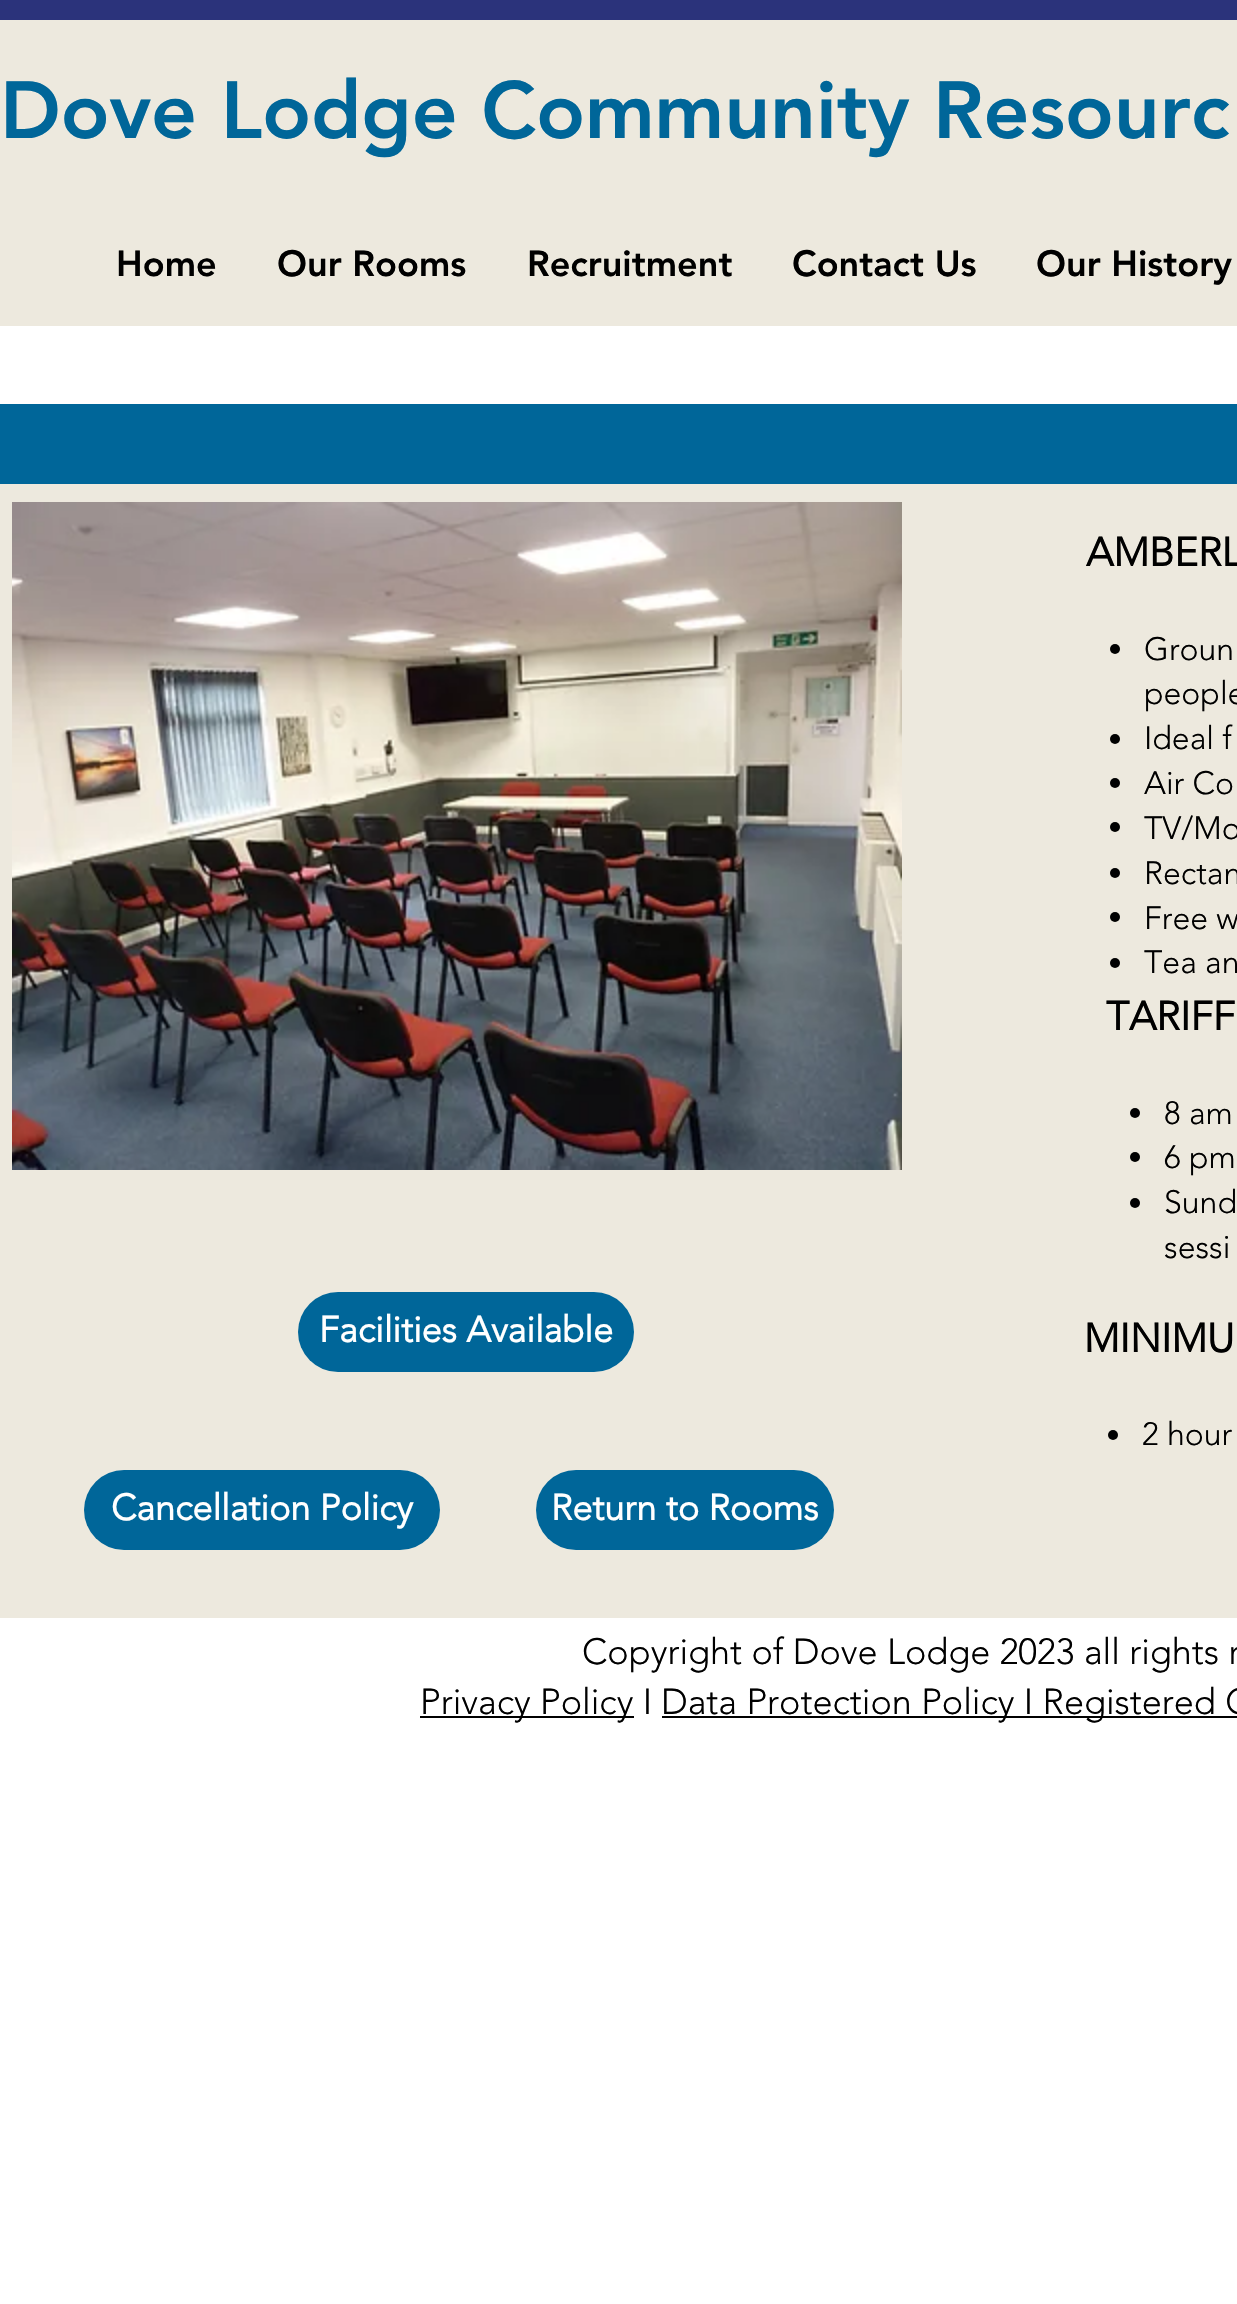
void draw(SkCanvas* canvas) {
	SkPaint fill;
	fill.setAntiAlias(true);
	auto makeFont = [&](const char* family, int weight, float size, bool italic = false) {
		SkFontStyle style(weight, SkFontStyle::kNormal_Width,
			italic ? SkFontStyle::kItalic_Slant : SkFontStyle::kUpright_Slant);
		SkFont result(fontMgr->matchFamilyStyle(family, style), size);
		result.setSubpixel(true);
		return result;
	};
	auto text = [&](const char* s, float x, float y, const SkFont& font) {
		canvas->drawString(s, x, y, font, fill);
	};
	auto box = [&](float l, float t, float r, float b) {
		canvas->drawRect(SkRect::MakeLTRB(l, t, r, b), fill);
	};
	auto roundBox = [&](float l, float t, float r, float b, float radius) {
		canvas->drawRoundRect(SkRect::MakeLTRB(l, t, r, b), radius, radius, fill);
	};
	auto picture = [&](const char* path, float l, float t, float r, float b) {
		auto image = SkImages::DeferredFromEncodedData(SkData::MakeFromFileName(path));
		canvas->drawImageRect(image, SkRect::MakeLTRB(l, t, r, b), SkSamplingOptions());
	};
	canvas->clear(0xFFFFFFFF);
	fill.setColor(0xFF2B337B);
	box(0, 0, 1237, 20);
	fill.setColor(0xFFEDE9DE);
	box(0, 20, 1237, 326);
	fill.setColor(0xFF006699);
	box(0, 404, 1237, 484);
	fill.setColor(0xFFEDE9DE);
	box(0, 484, 1237, 1618);
	picture("image0.png", 12, 502, 902, 1170);
	fill.setColor(0xFF000000);
	canvas->drawCircle(1115, 649, 5, fill);
	canvas->drawCircle(1115, 739, 5, fill);
	canvas->drawCircle(1115, 783, 5, fill);
	canvas->drawCircle(1115, 827, 5, fill);
	canvas->drawCircle(1115, 873, 5, fill);
	canvas->drawCircle(1115, 917, 5, fill);
	canvas->drawCircle(1115, 963, 5, fill);
	canvas->drawCircle(1135, 1113, 5, fill);
	canvas->drawCircle(1135, 1157, 5, fill);
	canvas->drawCircle(1135, 1203, 5, fill);
	fill.setColor(0xFF006699);
	roundBox(298, 1292, 634, 1372, 40);
	roundBox(84, 1470, 440, 1550, 40);
	roundBox(536, 1470, 834, 1550, 40);
	fill.setColor(0xFF000000);
	canvas->drawCircle(1113, 1435, 5, fill);
	box(420, 1716, 634, 1718);
	box(662, 1716, 1237, 1718);
	auto font1 = makeFont("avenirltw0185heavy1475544", 900, 80);
	fill.setColor(0xFF006699);
	text("Dove Lodge Community Resourc", 0, 138, font1);
	auto font2 = makeFont("avenirltw0185heavy1475544", 900, 36);
	fill.setColor(0xFF000000);
	text("Home", 116, 276, font2);
	text("Our Rooms", 277, 276, font2);
	text("Recruitment", 527, 276, font2);
	text("Contact Us", 792, 276, font2);
	text("Our History", 1036, 276, font2);
	auto font3 = makeFont("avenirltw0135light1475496", 700, 40);
	text("AMBERL", 1086, 566, font3);
	auto font4 = makeFont("avenirltw0135light1475496", 300, 32);
	text("Groun", 1144, 660, font4);
	text("people", 1144, 704, font4);
	text("Ideal f", 1144, 749, font4);
	text("Air Co", 1144, 794, font4);
	text("TV/Mo", 1144, 839, font4);
	text("Rectan", 1144, 884, font4);
	text("Free w", 1144, 929, font4);
	text("Tea an", 1144, 973, font4);
	text("TARIFF", 1106, 1030, font3);
	text("8 am", 1164, 1124, font4);
	text("6 pm", 1164, 1168, font4);
	text("Sund", 1164, 1213, font4);
	text("sessi", 1164, 1258, font4);
	auto font5 = makeFont("avenirltw0135light1475496", 700, 36);
	fill.setColor(0xFFFFFFFF);
	text("Facilities Available", 319, 1342, font5);
	text("Cancellation Policy", 111, 1520, font5);
	text("Return to Rooms", 551, 1520, font5);
	fill.setColor(0xFF000000);
	text("MINIMU", 1084, 1352, font3);
	text("2 hour", 1142, 1445, font4);
	auto font6 = makeFont("avenirltw0135light1475496", 300, 36);
	text("Copyright of Dove Lodge 2023 all rights r", 582, 1664, font6);
	text("Privacy Policy I", 420, 1714, font6);
	text("Data Protection Policy I Registered C", 661, 1714, font6);
}
